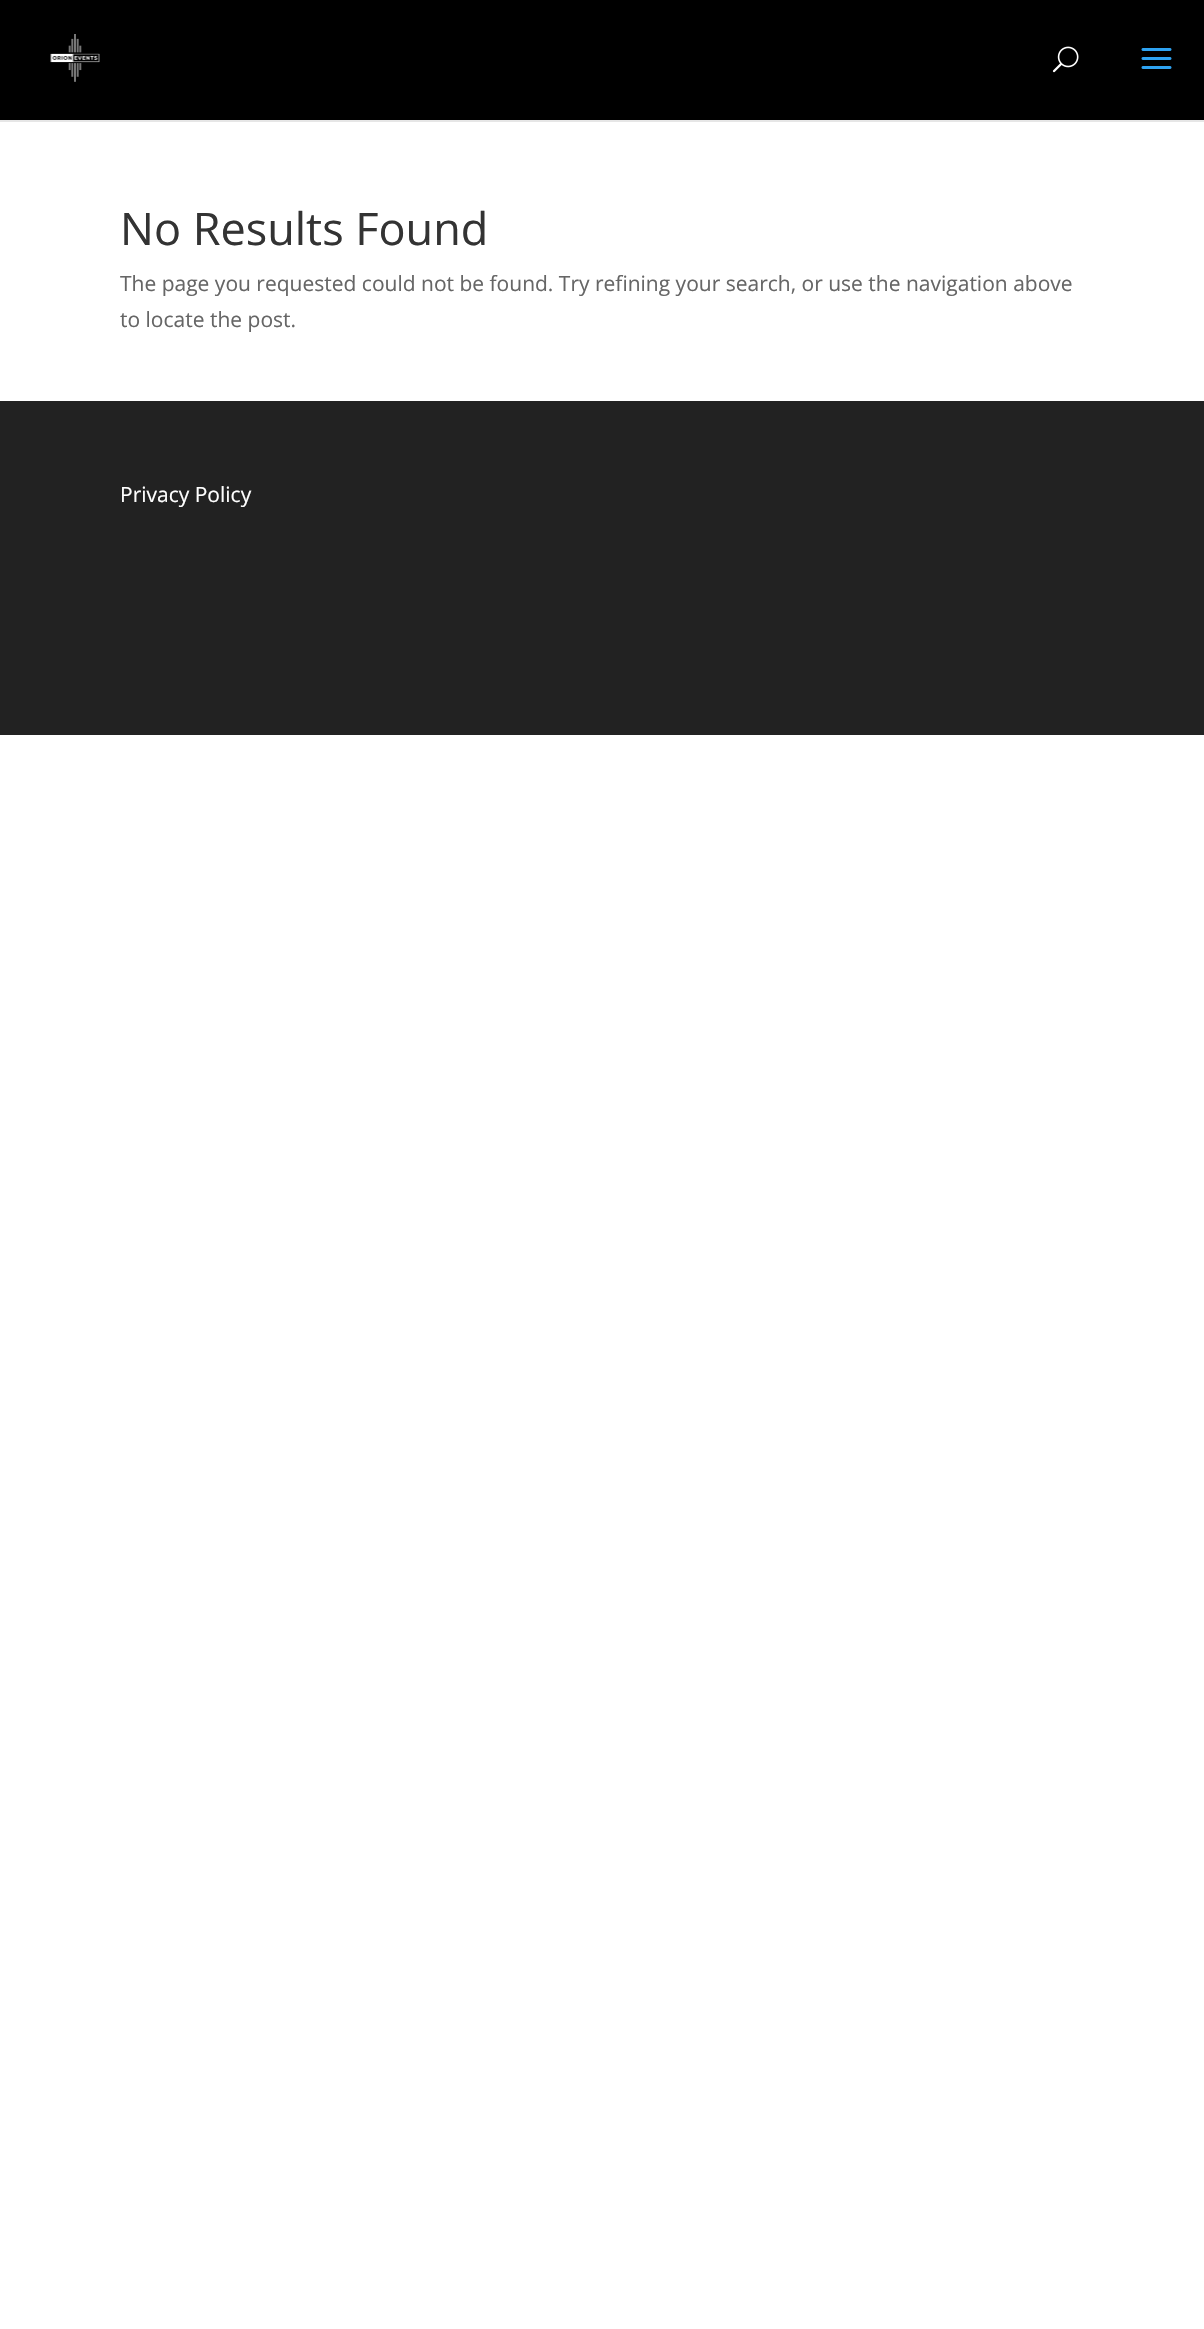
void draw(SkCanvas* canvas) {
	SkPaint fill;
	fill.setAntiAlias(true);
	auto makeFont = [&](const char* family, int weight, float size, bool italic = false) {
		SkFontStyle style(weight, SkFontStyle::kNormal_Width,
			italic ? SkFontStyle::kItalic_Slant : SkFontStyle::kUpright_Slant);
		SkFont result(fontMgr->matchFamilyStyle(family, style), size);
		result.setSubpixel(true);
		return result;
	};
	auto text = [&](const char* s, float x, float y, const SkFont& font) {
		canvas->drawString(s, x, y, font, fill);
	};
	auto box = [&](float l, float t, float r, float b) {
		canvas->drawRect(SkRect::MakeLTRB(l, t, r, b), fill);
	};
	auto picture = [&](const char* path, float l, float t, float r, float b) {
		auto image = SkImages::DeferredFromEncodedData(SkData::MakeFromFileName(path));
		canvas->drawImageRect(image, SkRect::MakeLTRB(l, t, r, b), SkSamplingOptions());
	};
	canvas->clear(0xFFFFFFFF);
	fill.setColor(0xFFE6E6E6);
	canvas->drawPath(SkPathBuilder().moveTo(0, 120).lineTo(0, 122).lineTo(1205, 122).lineTo(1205, 2).lineTo(1204, 2).lineTo(1204, 120).close().detach(), fill);
	fill.setColor(0xFF000000);
	box(0, 0, 1204, 120);
	picture("image0.png", 50, 34, 100, 82);
	picture("image1.png", 1052, 46, 1079, 73);
	picture("image2.png", 1141, 48, 1172, 69);
	fill.setColor(0xFF222222);
	box(0, 401, 1204, 735);
	auto font1 = makeFont("Open Sans", 400, 45);
	fill.setColor(0xFF333333);
	text("No Results Found", 120, 245, font1);
	auto font2 = makeFont("Open Sans", 400, 21);
	fill.setColor(0xFF666666);
	text("The page you requested could not be found. Try refining your search, or use the navigation above", 120, 291, font2);
	text("to locate the post.", 120, 327, font2);
	fill.setColor(0xFFFFFFFF);
	text("Privacy Policy", 120, 502, font2);
}
